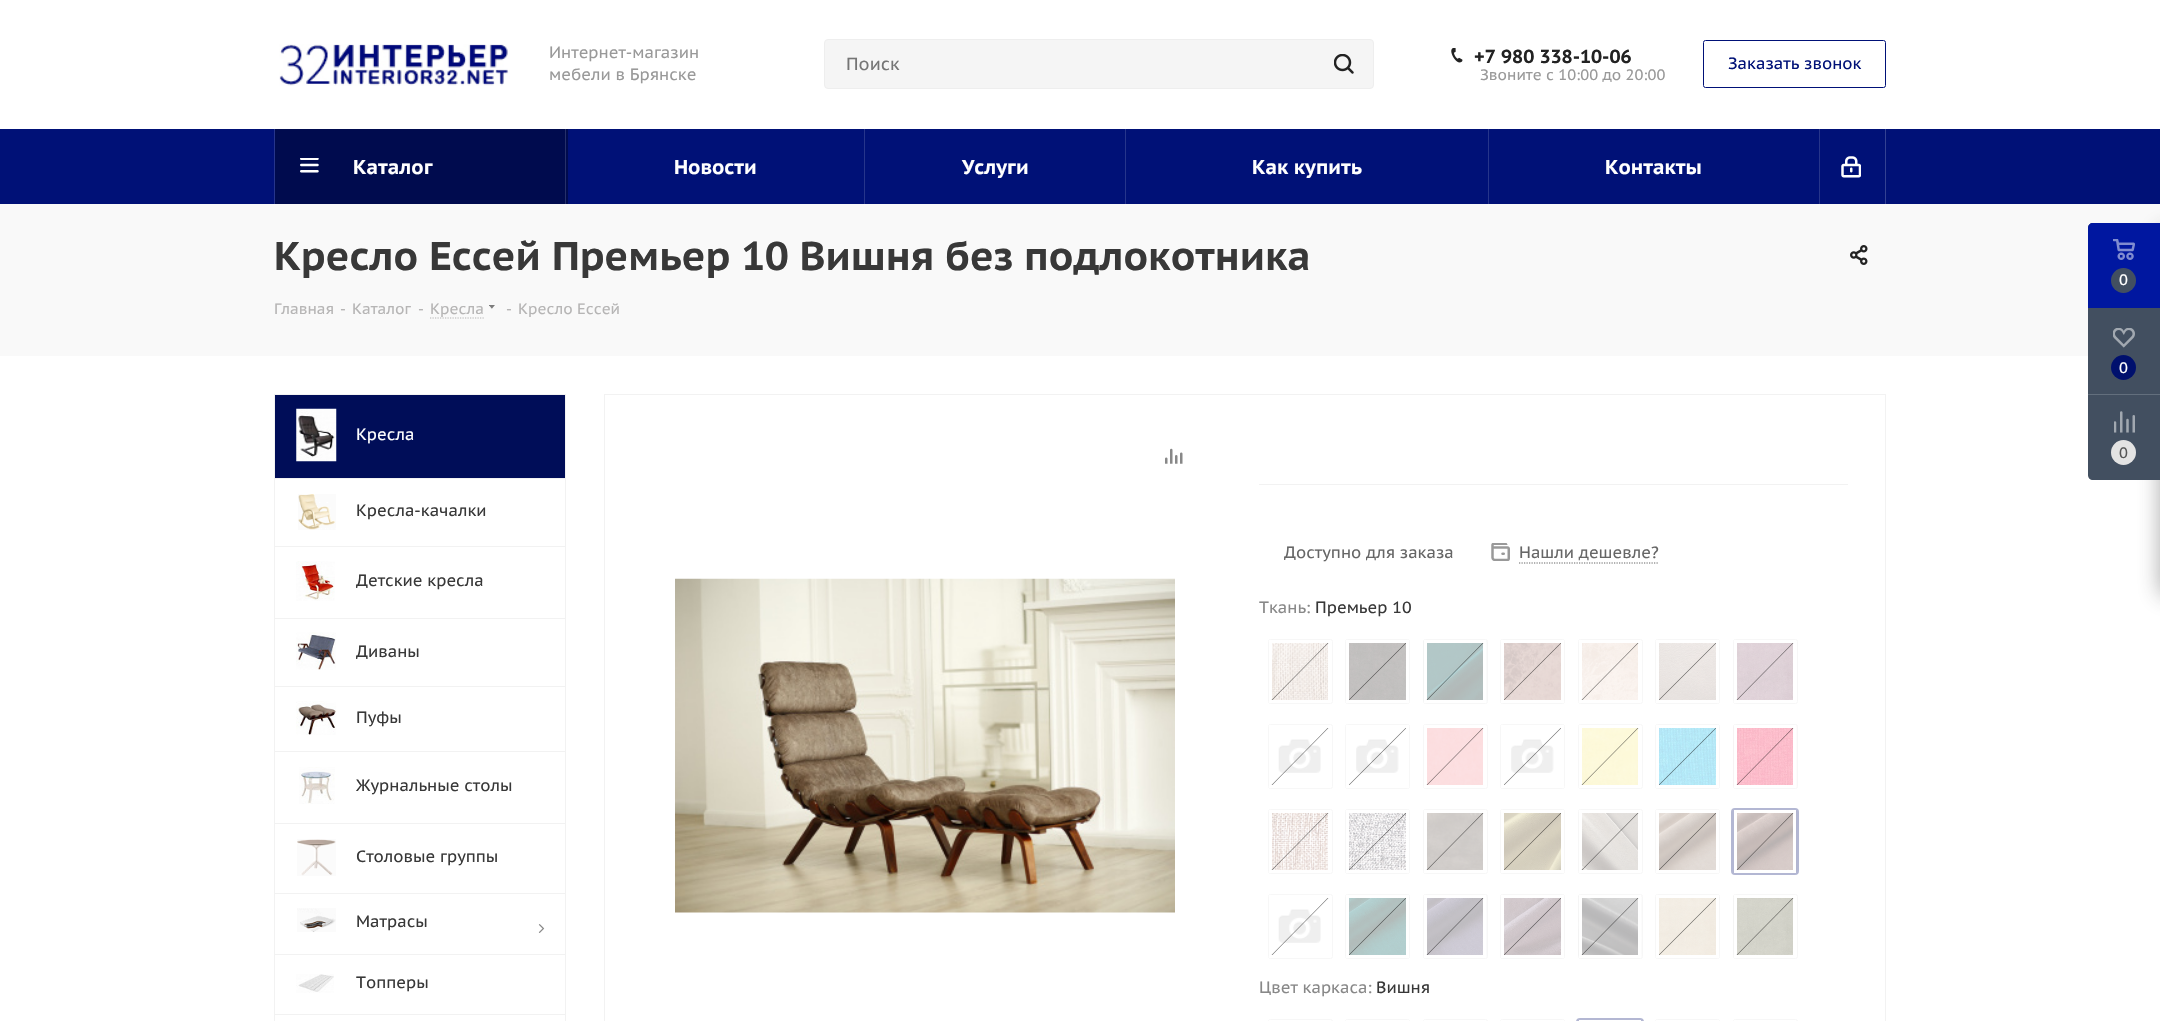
void draw(SkCanvas* canvas) {
	SkPaint fill;
	fill.setAntiAlias(true);
	auto makeFont = [&](const char* family, int weight, float size, bool italic = false) {
		SkFontStyle style(weight, SkFontStyle::kNormal_Width,
			italic ? SkFontStyle::kItalic_Slant : SkFontStyle::kUpright_Slant);
		SkFont result(fontMgr->matchFamilyStyle(family, style), size);
		result.setSubpixel(true);
		return result;
	};
	auto text = [&](const char* s, float x, float y, const SkFont& font) {
		canvas->drawString(s, x, y, font, fill);
	};
	auto box = [&](float l, float t, float r, float b) {
		canvas->drawRect(SkRect::MakeLTRB(l, t, r, b), fill);
	};
	auto picture = [&](const char* path, float l, float t, float r, float b) {
		auto image = SkImages::DeferredFromEncodedData(SkData::MakeFromFileName(path));
		canvas->drawImageRect(image, SkRect::MakeLTRB(l, t, r, b), SkSamplingOptions());
	};
	canvas->clear(0xFFFFFFFF);
	picture("image0.png", 279, 44, 510, 86);
	fill.setColor(0xFFF5F5F5);
	canvas->drawRoundRect(SkRect::MakeLTRB(824.5f, 39.5f, 1373.5f, 88.5f), 3.5f, 3.5f, fill);
	fill.setStyle(SkPaint::kStroke_Style);
	fill.setStrokeWidth(1);
	fill.setColor(0xFFEEEEEE);
	canvas->drawRoundRect(SkRect::MakeLTRB(824.5f, 39.5f, 1373.5f, 88.5f), 3.5f, 3.5f, fill);
	picture("image1.png", 1334, 54, 1354, 74);
	picture("image2.png", 1451, 48, 1463, 63);
	fill.setColor(0xFF001177);
	canvas->drawRoundRect(SkRect::MakeLTRB(1703.5f, 40.5f, 1885.5f, 87.5f), 2, 2, fill);
	fill.setStyle(SkPaint::kFill_Style);
	box(0, 129, 2160, 204);
	fill.setColor(0xFF26358B);
	box(274, 129, 275, 204);
	fill.setColor(0xFF000B4E);
	box(275, 129, 568, 204);
	fill.setColor(0xFF263069);
	box(565, 129, 566, 204);
	picture("image3.png", 300, 158, 319, 173);
	fill.setColor(0xFF26358B);
	box(864, 129, 865, 204);
	box(1125, 129, 1126, 204);
	box(1488, 129, 1489, 204);
	box(1819, 129, 1820, 204);
	fill.setColor(0xFF334192);
	box(1885, 129, 1886, 204);
	picture("image4.png", 1841, 156, 1861, 178);
	fill.setColor(0xFFF9F9F9);
	box(0, 204, 2160, 356);
	picture("image5.png", 1850, 245, 1868, 265);
	fill.setStyle(SkPaint::kStroke_Style);
	fill.setStrokeWidth(1.2f);
	fill.setColor(0xFFB4B4B4);
	fill.setPathEffect(SkDashPathEffect::Make({{1.25f, 1.25f}}, 0));
	canvas->drawPath(SkPathBuilder().moveTo(430, 318).lineTo(484, 318).detach(), fill);
	fill.setPathEffect(nullptr);
	picture("image6.png", 489, 305, 495, 309);
	fill.setStyle(SkPaint::kFill_Style);
	fill.setColor(0xFF000D58);
	box(275, 395, 565, 478);
	fill.setColor(0xFFF2F2F2);
	box(274, 394, 566, 395);
	box(565, 394, 566, 478);
	box(274, 394, 275, 478);
	picture("image7.png", 296, 408, 337, 462);
	box(274, 478, 566, 479);
	box(565, 478, 566, 546);
	box(274, 478, 275, 546);
	picture("image8.png", 298, 494, 336, 530);
	box(274, 546, 566, 547);
	box(565, 546, 566, 618);
	box(274, 546, 275, 618);
	picture("image9.png", 296, 561, 335, 601);
	box(274, 618, 566, 619);
	box(565, 618, 566, 686);
	box(274, 618, 275, 686);
	picture("image10.png", 296, 632, 336, 670);
	box(274, 686, 566, 687);
	box(565, 686, 566, 751);
	box(274, 686, 275, 751);
	picture("image11.png", 296, 701, 337, 735);
	box(274, 751, 566, 752);
	box(565, 751, 566, 823);
	box(274, 751, 275, 823);
	picture("image12.png", 299, 767, 335, 804);
	box(274, 823, 566, 824);
	box(565, 823, 566, 893);
	box(274, 823, 275, 893);
	picture("image13.png", 297, 839, 336, 876);
	box(274, 893, 566, 894);
	box(565, 893, 566, 954);
	box(274, 893, 275, 954);
	picture("image14.png", 297, 908, 336, 932);
	picture("image15.png", 538, 924, 545, 933);
	box(274, 954, 566, 955);
	box(565, 954, 566, 1014);
	box(274, 954, 275, 1014);
	picture("image16.png", 296, 974, 334, 993);
	box(274, 1014, 566, 1015);
	box(565, 1014, 566, 1021);
	box(274, 1014, 275, 1021);
	fill.setStyle(SkPaint::kStroke_Style);
	fill.setStrokeWidth(1);
	canvas->drawRect(SkRect::MakeLTRB(604.5f, 394.5f, 1885.5f, 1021.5f), fill);
	picture("image17.png", 1165, 448, 1183, 464);
	picture("image18.png", 675, 578, 1175, 913);
	fill.setStyle(SkPaint::kFill_Style);
	box(1259, 484, 1848, 485);
	picture("image19.png", 1491, 543, 1510, 561);
	fill.setStyle(SkPaint::kStroke_Style);
	fill.setStrokeWidth(1.2f);
	fill.setColor(0xFF666666);
	fill.setPathEffect(SkDashPathEffect::Make({{1.25f, 1.25f}}, 0));
	canvas->drawPath(SkPathBuilder().moveTo(1519, 563).lineTo(1659, 563).detach(), fill);
	fill.setPathEffect(nullptr);
	fill.setStrokeWidth(1);
	fill.setColor(0xFFF7F7F7);
	canvas->drawRoundRect(SkRect::MakeLTRB(1268.5f, 639.5f, 1332.5f, 703.5f), 2, 2, fill);
	picture("image20.png", 1269, 640, 1331, 703);
	fill.setStrokeWidth(3);
	fill.setColor(0xFFFFFFFF);
	canvas->drawRect(SkRect::MakeLTRB(1270.5f, 641.5f, 1329.5f, 701.5f), fill);
	fill.setStyle(SkPaint::kFill_Style);
	{
		const SkColor colors[] = {0x00000000, 0x00000000, 0x66000000, 0x00000000, 0x00000000};
		const float stops[] = {0, 0.49f, 0.5f, 0.51f, 1};
		const SkPoint ends[] = {{1329, 700}, {1271, 643}};
		fill.setShader(SkGradientShader::MakeLinear(ends, colors, stops, 5, SkTileMode::kClamp));
		fill.setAlpha(255);
	}
	box(1271, 643, 1329, 700);
	fill.setStyle(SkPaint::kStroke_Style);
	fill.setStrokeWidth(1);
	fill.setShader(nullptr);
	fill.setColor(0xFFF7F7F7);
	canvas->drawRoundRect(SkRect::MakeLTRB(1345.5f, 639.5f, 1409.5f, 703.5f), 2, 2, fill);
	picture("image21.png", 1346, 640, 1409, 700);
	fill.setStrokeWidth(3);
	fill.setColor(0xFFFFFFFF);
	canvas->drawRect(SkRect::MakeLTRB(1347.5f, 641.5f, 1407.5f, 701.5f), fill);
	fill.setStyle(SkPaint::kFill_Style);
	{
		const SkColor colors[] = {0x00000000, 0x00000000, 0x66000000, 0x00000000, 0x00000000};
		const float stops[] = {0, 0.49f, 0.5f, 0.51f, 1};
		const SkPoint ends[] = {{1406, 700}, {1349, 643}};
		fill.setShader(SkGradientShader::MakeLinear(ends, colors, stops, 5, SkTileMode::kClamp));
		fill.setAlpha(255);
	}
	box(1349, 643, 1406, 700);
	fill.setStyle(SkPaint::kStroke_Style);
	fill.setStrokeWidth(1);
	fill.setShader(nullptr);
	fill.setColor(0xFFF7F7F7);
	canvas->drawRoundRect(SkRect::MakeLTRB(1423.5f, 639.5f, 1487.5f, 703.5f), 2, 2, fill);
	picture("image22.png", 1423, 640, 1487, 703);
	fill.setStrokeWidth(3);
	fill.setColor(0xFFFFFFFF);
	canvas->drawRect(SkRect::MakeLTRB(1425.5f, 641.5f, 1484.5f, 701.5f), fill);
	fill.setStyle(SkPaint::kFill_Style);
	{
		const SkColor colors[] = {0x00000000, 0x00000000, 0x66000000, 0x00000000, 0x00000000};
		const float stops[] = {0, 0.49f, 0.5f, 0.51f, 1};
		const SkPoint ends[] = {{1484, 700}, {1426, 643}};
		fill.setShader(SkGradientShader::MakeLinear(ends, colors, stops, 5, SkTileMode::kClamp));
		fill.setAlpha(255);
	}
	box(1426, 643, 1484, 700);
	fill.setStyle(SkPaint::kStroke_Style);
	fill.setStrokeWidth(1);
	fill.setShader(nullptr);
	fill.setColor(0xFFF7F7F7);
	canvas->drawRoundRect(SkRect::MakeLTRB(1500.5f, 639.5f, 1564.5f, 703.5f), 2, 2, fill);
	picture("image23.png", 1501, 640, 1564, 700);
	fill.setStrokeWidth(3);
	fill.setColor(0xFFFFFFFF);
	canvas->drawRect(SkRect::MakeLTRB(1502.5f, 641.5f, 1562.5f, 701.5f), fill);
	fill.setStyle(SkPaint::kFill_Style);
	{
		const SkColor colors[] = {0x00000000, 0x00000000, 0x66000000, 0x00000000, 0x00000000};
		const float stops[] = {0, 0.49f, 0.5f, 0.51f, 1};
		const SkPoint ends[] = {{1561, 700}, {1504, 643}};
		fill.setShader(SkGradientShader::MakeLinear(ends, colors, stops, 5, SkTileMode::kClamp));
		fill.setAlpha(255);
	}
	box(1504, 643, 1561, 700);
	fill.setStyle(SkPaint::kStroke_Style);
	fill.setStrokeWidth(1);
	fill.setShader(nullptr);
	fill.setColor(0xFFF7F7F7);
	canvas->drawRoundRect(SkRect::MakeLTRB(1578.5f, 639.5f, 1642.5f, 703.5f), 2, 2, fill);
	picture("image24.png", 1579, 640, 1641, 703);
	fill.setStrokeWidth(3);
	fill.setColor(0xFFFFFFFF);
	canvas->drawRect(SkRect::MakeLTRB(1580.5f, 641.5f, 1639.5f, 701.5f), fill);
	fill.setStyle(SkPaint::kFill_Style);
	{
		const SkColor colors[] = {0x00000000, 0x00000000, 0x66000000, 0x00000000, 0x00000000};
		const float stops[] = {0, 0.49f, 0.5f, 0.51f, 1};
		const SkPoint ends[] = {{1639, 700}, {1581, 643}};
		fill.setShader(SkGradientShader::MakeLinear(ends, colors, stops, 5, SkTileMode::kClamp));
		fill.setAlpha(255);
	}
	box(1581, 643, 1639, 700);
	fill.setStyle(SkPaint::kStroke_Style);
	fill.setStrokeWidth(1);
	fill.setShader(nullptr);
	fill.setColor(0xFFF7F7F7);
	canvas->drawRoundRect(SkRect::MakeLTRB(1655.5f, 639.5f, 1719.5f, 703.5f), 2, 2, fill);
	picture("image25.png", 1656, 640, 1719, 700);
	fill.setStrokeWidth(3);
	fill.setColor(0xFFFFFFFF);
	canvas->drawRect(SkRect::MakeLTRB(1657.5f, 641.5f, 1717.5f, 701.5f), fill);
	fill.setStyle(SkPaint::kFill_Style);
	{
		const SkColor colors[] = {0x00000000, 0x00000000, 0x66000000, 0x00000000, 0x00000000};
		const float stops[] = {0, 0.49f, 0.5f, 0.51f, 1};
		const SkPoint ends[] = {{1716, 700}, {1659, 643}};
		fill.setShader(SkGradientShader::MakeLinear(ends, colors, stops, 5, SkTileMode::kClamp));
		fill.setAlpha(255);
	}
	box(1659, 643, 1716, 700);
	fill.setStyle(SkPaint::kStroke_Style);
	fill.setStrokeWidth(1);
	fill.setShader(nullptr);
	fill.setColor(0xFFF7F7F7);
	canvas->drawRoundRect(SkRect::MakeLTRB(1733.5f, 639.5f, 1797.5f, 703.5f), 2, 2, fill);
	picture("image26.png", 1734, 640, 1796, 703);
	fill.setStrokeWidth(3);
	fill.setColor(0xFFFFFFFF);
	canvas->drawRect(SkRect::MakeLTRB(1735.5f, 641.5f, 1794.5f, 701.5f), fill);
	fill.setStyle(SkPaint::kFill_Style);
	{
		const SkColor colors[] = {0x00000000, 0x00000000, 0x66000000, 0x00000000, 0x00000000};
		const float stops[] = {0, 0.49f, 0.5f, 0.51f, 1};
		const SkPoint ends[] = {{1794, 700}, {1736, 643}};
		fill.setShader(SkGradientShader::MakeLinear(ends, colors, stops, 5, SkTileMode::kClamp));
		fill.setAlpha(255);
	}
	box(1736, 643, 1794, 700);
	fill.setStyle(SkPaint::kStroke_Style);
	fill.setStrokeWidth(1);
	fill.setShader(nullptr);
	fill.setColor(0xFFF7F7F7);
	canvas->drawRoundRect(SkRect::MakeLTRB(1268.5f, 724.5f, 1332.5f, 788.5f), 2, 2, fill);
	fill.setStrokeWidth(3);
	fill.setColor(0xFFFFFFFF);
	canvas->drawRect(SkRect::MakeLTRB(1270.5f, 726.5f, 1329.5f, 786.5f), fill);
	picture("image27.png", 1278, 739, 1321, 773);
	fill.setStyle(SkPaint::kFill_Style);
	{
		const SkColor colors[] = {0x00000000, 0x00000000, 0x66000000, 0x00000000, 0x00000000};
		const float stops[] = {0, 0.49f, 0.5f, 0.51f, 1};
		const SkPoint ends[] = {{1329, 785}, {1271, 728}};
		fill.setShader(SkGradientShader::MakeLinear(ends, colors, stops, 5, SkTileMode::kClamp));
		fill.setAlpha(255);
	}
	box(1271, 728, 1329, 785);
	fill.setStyle(SkPaint::kStroke_Style);
	fill.setStrokeWidth(1);
	fill.setShader(nullptr);
	fill.setColor(0xFFF7F7F7);
	canvas->drawRoundRect(SkRect::MakeLTRB(1345.5f, 724.5f, 1409.5f, 788.5f), 2, 2, fill);
	fill.setStrokeWidth(3);
	fill.setColor(0xFFFFFFFF);
	canvas->drawRect(SkRect::MakeLTRB(1347.5f, 726.5f, 1407.5f, 786.5f), fill);
	picture("image28.png", 1356, 739, 1399, 773);
	fill.setStyle(SkPaint::kFill_Style);
	{
		const SkColor colors[] = {0x00000000, 0x00000000, 0x66000000, 0x00000000, 0x00000000};
		const float stops[] = {0, 0.49f, 0.5f, 0.51f, 1};
		const SkPoint ends[] = {{1406, 785}, {1349, 728}};
		fill.setShader(SkGradientShader::MakeLinear(ends, colors, stops, 5, SkTileMode::kClamp));
		fill.setAlpha(255);
	}
	box(1349, 728, 1406, 785);
	fill.setStyle(SkPaint::kStroke_Style);
	fill.setStrokeWidth(1);
	fill.setShader(nullptr);
	fill.setColor(0xFFF7F7F7);
	canvas->drawRoundRect(SkRect::MakeLTRB(1423.5f, 724.5f, 1487.5f, 788.5f), 2, 2, fill);
	picture("image29.png", 1424, 725, 1486, 788);
	fill.setStrokeWidth(3);
	fill.setColor(0xFFFFFFFF);
	canvas->drawRect(SkRect::MakeLTRB(1425.5f, 726.5f, 1484.5f, 786.5f), fill);
	fill.setStyle(SkPaint::kFill_Style);
	{
		const SkColor colors[] = {0x00000000, 0x00000000, 0x66000000, 0x00000000, 0x00000000};
		const float stops[] = {0, 0.49f, 0.5f, 0.51f, 1};
		const SkPoint ends[] = {{1484, 785}, {1426, 728}};
		fill.setShader(SkGradientShader::MakeLinear(ends, colors, stops, 5, SkTileMode::kClamp));
		fill.setAlpha(255);
	}
	box(1426, 728, 1484, 785);
	fill.setStyle(SkPaint::kStroke_Style);
	fill.setStrokeWidth(1);
	fill.setShader(nullptr);
	fill.setColor(0xFFF7F7F7);
	canvas->drawRoundRect(SkRect::MakeLTRB(1500.5f, 724.5f, 1564.5f, 788.5f), 2, 2, fill);
	fill.setStrokeWidth(3);
	fill.setColor(0xFFFFFFFF);
	canvas->drawRect(SkRect::MakeLTRB(1502.5f, 726.5f, 1562.5f, 786.5f), fill);
	picture("image28.png", 1511, 739, 1554, 773);
	fill.setStyle(SkPaint::kFill_Style);
	{
		const SkColor colors[] = {0x00000000, 0x00000000, 0x66000000, 0x00000000, 0x00000000};
		const float stops[] = {0, 0.49f, 0.5f, 0.51f, 1};
		const SkPoint ends[] = {{1561, 785}, {1504, 728}};
		fill.setShader(SkGradientShader::MakeLinear(ends, colors, stops, 5, SkTileMode::kClamp));
		fill.setAlpha(255);
	}
	box(1504, 728, 1561, 785);
	fill.setStyle(SkPaint::kStroke_Style);
	fill.setStrokeWidth(1);
	fill.setShader(nullptr);
	fill.setColor(0xFFF7F7F7);
	canvas->drawRoundRect(SkRect::MakeLTRB(1578.5f, 724.5f, 1642.5f, 788.5f), 2, 2, fill);
	picture("image30.png", 1579, 725, 1641, 788);
	fill.setStrokeWidth(3);
	fill.setColor(0xFFFFFFFF);
	canvas->drawRect(SkRect::MakeLTRB(1580.5f, 726.5f, 1639.5f, 786.5f), fill);
	fill.setStyle(SkPaint::kFill_Style);
	{
		const SkColor colors[] = {0x00000000, 0x00000000, 0x66000000, 0x00000000, 0x00000000};
		const float stops[] = {0, 0.49f, 0.5f, 0.51f, 1};
		const SkPoint ends[] = {{1639, 785}, {1581, 728}};
		fill.setShader(SkGradientShader::MakeLinear(ends, colors, stops, 5, SkTileMode::kClamp));
		fill.setAlpha(255);
	}
	box(1581, 728, 1639, 785);
	fill.setStyle(SkPaint::kStroke_Style);
	fill.setStrokeWidth(1);
	fill.setShader(nullptr);
	fill.setColor(0xFFF7F7F7);
	canvas->drawRoundRect(SkRect::MakeLTRB(1655.5f, 724.5f, 1719.5f, 788.5f), 2, 2, fill);
	picture("image31.png", 1656, 725, 1719, 785);
	fill.setStrokeWidth(3);
	fill.setColor(0xFFFFFFFF);
	canvas->drawRect(SkRect::MakeLTRB(1657.5f, 726.5f, 1717.5f, 786.5f), fill);
	fill.setStyle(SkPaint::kFill_Style);
	{
		const SkColor colors[] = {0x00000000, 0x00000000, 0x66000000, 0x00000000, 0x00000000};
		const float stops[] = {0, 0.49f, 0.5f, 0.51f, 1};
		const SkPoint ends[] = {{1716, 785}, {1659, 728}};
		fill.setShader(SkGradientShader::MakeLinear(ends, colors, stops, 5, SkTileMode::kClamp));
		fill.setAlpha(255);
	}
	box(1659, 728, 1716, 785);
	fill.setStyle(SkPaint::kStroke_Style);
	fill.setStrokeWidth(1);
	fill.setShader(nullptr);
	fill.setColor(0xFFF7F7F7);
	canvas->drawRoundRect(SkRect::MakeLTRB(1733.5f, 724.5f, 1797.5f, 788.5f), 2, 2, fill);
	picture("image32.png", 1733, 725, 1797, 788);
	fill.setStrokeWidth(3);
	fill.setColor(0xFFFFFFFF);
	canvas->drawRect(SkRect::MakeLTRB(1735.5f, 726.5f, 1794.5f, 786.5f), fill);
	fill.setStyle(SkPaint::kFill_Style);
	{
		const SkColor colors[] = {0x00000000, 0x00000000, 0x66000000, 0x00000000, 0x00000000};
		const float stops[] = {0, 0.49f, 0.5f, 0.51f, 1};
		const SkPoint ends[] = {{1794, 785}, {1736, 728}};
		fill.setShader(SkGradientShader::MakeLinear(ends, colors, stops, 5, SkTileMode::kClamp));
		fill.setAlpha(255);
	}
	box(1736, 728, 1794, 785);
	fill.setStyle(SkPaint::kStroke_Style);
	fill.setStrokeWidth(1);
	fill.setShader(nullptr);
	fill.setColor(0xFFF7F7F7);
	canvas->drawRoundRect(SkRect::MakeLTRB(1268.5f, 809.5f, 1332.5f, 873.5f), 2, 2, fill);
	picture("image33.png", 1269, 810, 1331, 873);
	fill.setStrokeWidth(3);
	fill.setColor(0xFFFFFFFF);
	canvas->drawRect(SkRect::MakeLTRB(1270.5f, 811.5f, 1329.5f, 871.5f), fill);
	fill.setStyle(SkPaint::kFill_Style);
	{
		const SkColor colors[] = {0x00000000, 0x00000000, 0x66000000, 0x00000000, 0x00000000};
		const float stops[] = {0, 0.49f, 0.5f, 0.51f, 1};
		const SkPoint ends[] = {{1329, 870}, {1271, 813}};
		fill.setShader(SkGradientShader::MakeLinear(ends, colors, stops, 5, SkTileMode::kClamp));
		fill.setAlpha(255);
	}
	box(1271, 813, 1329, 870);
	fill.setStyle(SkPaint::kStroke_Style);
	fill.setStrokeWidth(1);
	fill.setShader(nullptr);
	fill.setColor(0xFFF7F7F7);
	canvas->drawRoundRect(SkRect::MakeLTRB(1345.5f, 809.5f, 1409.5f, 873.5f), 2, 2, fill);
	picture("image34.png", 1346, 810, 1409, 870);
	fill.setStrokeWidth(3);
	fill.setColor(0xFFFFFFFF);
	canvas->drawRect(SkRect::MakeLTRB(1347.5f, 811.5f, 1407.5f, 871.5f), fill);
	fill.setStyle(SkPaint::kFill_Style);
	{
		const SkColor colors[] = {0x00000000, 0x00000000, 0x66000000, 0x00000000, 0x00000000};
		const float stops[] = {0, 0.49f, 0.5f, 0.51f, 1};
		const SkPoint ends[] = {{1406, 870}, {1349, 813}};
		fill.setShader(SkGradientShader::MakeLinear(ends, colors, stops, 5, SkTileMode::kClamp));
		fill.setAlpha(255);
	}
	box(1349, 813, 1406, 870);
	fill.setStyle(SkPaint::kStroke_Style);
	fill.setStrokeWidth(1);
	fill.setShader(nullptr);
	fill.setColor(0xFFF7F7F7);
	canvas->drawRoundRect(SkRect::MakeLTRB(1423.5f, 809.5f, 1487.5f, 873.5f), 2, 2, fill);
	picture("image35.png", 1424, 810, 1486, 873);
	fill.setStrokeWidth(3);
	fill.setColor(0xFFFFFFFF);
	canvas->drawRect(SkRect::MakeLTRB(1425.5f, 811.5f, 1484.5f, 871.5f), fill);
	fill.setStyle(SkPaint::kFill_Style);
	{
		const SkColor colors[] = {0x00000000, 0x00000000, 0x66000000, 0x00000000, 0x00000000};
		const float stops[] = {0, 0.49f, 0.5f, 0.51f, 1};
		const SkPoint ends[] = {{1484, 870}, {1426, 813}};
		fill.setShader(SkGradientShader::MakeLinear(ends, colors, stops, 5, SkTileMode::kClamp));
		fill.setAlpha(255);
	}
	box(1426, 813, 1484, 870);
	fill.setStyle(SkPaint::kStroke_Style);
	fill.setStrokeWidth(1);
	fill.setShader(nullptr);
	fill.setColor(0xFFF7F7F7);
	canvas->drawRoundRect(SkRect::MakeLTRB(1500.5f, 809.5f, 1564.5f, 873.5f), 2, 2, fill);
	picture("image36.png", 1501, 810, 1564, 870);
	fill.setStrokeWidth(3);
	fill.setColor(0xFFFFFFFF);
	canvas->drawRect(SkRect::MakeLTRB(1502.5f, 811.5f, 1562.5f, 871.5f), fill);
	fill.setStyle(SkPaint::kFill_Style);
	{
		const SkColor colors[] = {0x00000000, 0x00000000, 0x66000000, 0x00000000, 0x00000000};
		const float stops[] = {0, 0.49f, 0.5f, 0.51f, 1};
		const SkPoint ends[] = {{1561, 870}, {1504, 813}};
		fill.setShader(SkGradientShader::MakeLinear(ends, colors, stops, 5, SkTileMode::kClamp));
		fill.setAlpha(255);
	}
	box(1504, 813, 1561, 870);
	fill.setStyle(SkPaint::kStroke_Style);
	fill.setStrokeWidth(1);
	fill.setShader(nullptr);
	fill.setColor(0xFFF7F7F7);
	canvas->drawRoundRect(SkRect::MakeLTRB(1578.5f, 809.5f, 1642.5f, 873.5f), 2, 2, fill);
	picture("image37.png", 1579, 810, 1641, 873);
	fill.setStrokeWidth(3);
	fill.setColor(0xFFFFFFFF);
	canvas->drawRect(SkRect::MakeLTRB(1580.5f, 811.5f, 1639.5f, 871.5f), fill);
	fill.setStyle(SkPaint::kFill_Style);
	{
		const SkColor colors[] = {0x00000000, 0x00000000, 0x66000000, 0x00000000, 0x00000000};
		const float stops[] = {0, 0.49f, 0.5f, 0.51f, 1};
		const SkPoint ends[] = {{1639, 870}, {1581, 813}};
		fill.setShader(SkGradientShader::MakeLinear(ends, colors, stops, 5, SkTileMode::kClamp));
		fill.setAlpha(255);
	}
	box(1581, 813, 1639, 870);
	fill.setStyle(SkPaint::kStroke_Style);
	fill.setStrokeWidth(1);
	fill.setShader(nullptr);
	fill.setColor(0xFFF7F7F7);
	canvas->drawRoundRect(SkRect::MakeLTRB(1655.5f, 809.5f, 1719.5f, 873.5f), 2, 2, fill);
	picture("image38.png", 1656, 810, 1719, 870);
	fill.setStrokeWidth(3);
	fill.setColor(0xFFFFFFFF);
	canvas->drawRect(SkRect::MakeLTRB(1657.5f, 811.5f, 1717.5f, 871.5f), fill);
	fill.setStyle(SkPaint::kFill_Style);
	{
		const SkColor colors[] = {0x00000000, 0x00000000, 0x66000000, 0x00000000, 0x00000000};
		const float stops[] = {0, 0.49f, 0.5f, 0.51f, 1};
		const SkPoint ends[] = {{1716, 870}, {1659, 813}};
		fill.setShader(SkGradientShader::MakeLinear(ends, colors, stops, 5, SkTileMode::kClamp));
		fill.setAlpha(255);
	}
	box(1659, 813, 1716, 870);
	fill.setStyle(SkPaint::kStroke_Style);
	fill.setShader(nullptr);
	fill.setColor(0xFFB3B7D3);
	canvas->drawRoundRect(SkRect::MakeLTRB(1732.5f, 809.5f, 1797.5f, 873.5f), 2.5f, 2.5f, fill);
	picture("image39.png", 1734, 810, 1797, 873);
	fill.setColor(0xFFFFFFFF);
	canvas->drawRect(SkRect::MakeLTRB(1735.5f, 811.5f, 1794.5f, 871.5f), fill);
	fill.setStyle(SkPaint::kFill_Style);
	{
		const SkColor colors[] = {0x00000000, 0x00000000, 0x66000000, 0x00000000, 0x00000000};
		const float stops[] = {0, 0.49f, 0.5f, 0.51f, 1};
		const SkPoint ends[] = {{1794, 870}, {1736, 813}};
		fill.setShader(SkGradientShader::MakeLinear(ends, colors, stops, 5, SkTileMode::kClamp));
		fill.setAlpha(255);
	}
	box(1736, 813, 1794, 870);
	fill.setStyle(SkPaint::kStroke_Style);
	fill.setStrokeWidth(1);
	fill.setShader(nullptr);
	fill.setColor(0xFFF7F7F7);
	canvas->drawRoundRect(SkRect::MakeLTRB(1268.5f, 894.5f, 1332.5f, 958.5f), 2, 2, fill);
	fill.setStrokeWidth(3);
	fill.setColor(0xFFFFFFFF);
	canvas->drawRect(SkRect::MakeLTRB(1270.5f, 896.5f, 1329.5f, 956.5f), fill);
	picture("image40.png", 1278, 909, 1321, 943);
	fill.setStyle(SkPaint::kFill_Style);
	{
		const SkColor colors[] = {0x00000000, 0x00000000, 0x66000000, 0x00000000, 0x00000000};
		const float stops[] = {0, 0.49f, 0.5f, 0.51f, 1};
		const SkPoint ends[] = {{1329, 955}, {1271, 898}};
		fill.setShader(SkGradientShader::MakeLinear(ends, colors, stops, 5, SkTileMode::kClamp));
		fill.setAlpha(255);
	}
	box(1271, 898, 1329, 955);
	fill.setStyle(SkPaint::kStroke_Style);
	fill.setStrokeWidth(1);
	fill.setShader(nullptr);
	fill.setColor(0xFFF7F7F7);
	canvas->drawRoundRect(SkRect::MakeLTRB(1345.5f, 894.5f, 1409.5f, 958.5f), 2, 2, fill);
	picture("image41.png", 1346, 895, 1409, 955);
	fill.setStrokeWidth(3);
	fill.setColor(0xFFFFFFFF);
	canvas->drawRect(SkRect::MakeLTRB(1347.5f, 896.5f, 1407.5f, 956.5f), fill);
	fill.setStyle(SkPaint::kFill_Style);
	{
		const SkColor colors[] = {0x00000000, 0x00000000, 0x66000000, 0x00000000, 0x00000000};
		const float stops[] = {0, 0.49f, 0.5f, 0.51f, 1};
		const SkPoint ends[] = {{1406, 955}, {1349, 898}};
		fill.setShader(SkGradientShader::MakeLinear(ends, colors, stops, 5, SkTileMode::kClamp));
		fill.setAlpha(255);
	}
	box(1349, 898, 1406, 955);
	fill.setStyle(SkPaint::kStroke_Style);
	fill.setStrokeWidth(1);
	fill.setShader(nullptr);
	fill.setColor(0xFFF7F7F7);
	canvas->drawRoundRect(SkRect::MakeLTRB(1423.5f, 894.5f, 1487.5f, 958.5f), 2, 2, fill);
	picture("image42.png", 1424, 895, 1487, 958);
	fill.setStrokeWidth(3);
	fill.setColor(0xFFFFFFFF);
	canvas->drawRect(SkRect::MakeLTRB(1425.5f, 896.5f, 1484.5f, 956.5f), fill);
	fill.setStyle(SkPaint::kFill_Style);
	{
		const SkColor colors[] = {0x00000000, 0x00000000, 0x66000000, 0x00000000, 0x00000000};
		const float stops[] = {0, 0.49f, 0.5f, 0.51f, 1};
		const SkPoint ends[] = {{1484, 955}, {1426, 898}};
		fill.setShader(SkGradientShader::MakeLinear(ends, colors, stops, 5, SkTileMode::kClamp));
		fill.setAlpha(255);
	}
	box(1426, 898, 1484, 955);
	fill.setStyle(SkPaint::kStroke_Style);
	fill.setStrokeWidth(1);
	fill.setShader(nullptr);
	fill.setColor(0xFFF7F7F7);
	canvas->drawRoundRect(SkRect::MakeLTRB(1500.5f, 894.5f, 1564.5f, 958.5f), 2, 2, fill);
	picture("image43.png", 1501, 895, 1564, 955);
	fill.setStrokeWidth(3);
	fill.setColor(0xFFFFFFFF);
	canvas->drawRect(SkRect::MakeLTRB(1502.5f, 896.5f, 1562.5f, 956.5f), fill);
	fill.setStyle(SkPaint::kFill_Style);
	{
		const SkColor colors[] = {0x00000000, 0x00000000, 0x66000000, 0x00000000, 0x00000000};
		const float stops[] = {0, 0.49f, 0.5f, 0.51f, 1};
		const SkPoint ends[] = {{1561, 955}, {1504, 898}};
		fill.setShader(SkGradientShader::MakeLinear(ends, colors, stops, 5, SkTileMode::kClamp));
		fill.setAlpha(255);
	}
	box(1504, 898, 1561, 955);
	fill.setStyle(SkPaint::kStroke_Style);
	fill.setStrokeWidth(1);
	fill.setShader(nullptr);
	fill.setColor(0xFFF7F7F7);
	canvas->drawRoundRect(SkRect::MakeLTRB(1578.5f, 894.5f, 1642.5f, 958.5f), 2, 2, fill);
	picture("image44.png", 1578, 895, 1642, 958);
	fill.setStrokeWidth(3);
	fill.setColor(0xFFFFFFFF);
	canvas->drawRect(SkRect::MakeLTRB(1580.5f, 896.5f, 1639.5f, 956.5f), fill);
	fill.setStyle(SkPaint::kFill_Style);
	{
		const SkColor colors[] = {0x00000000, 0x00000000, 0x66000000, 0x00000000, 0x00000000};
		const float stops[] = {0, 0.49f, 0.5f, 0.51f, 1};
		const SkPoint ends[] = {{1639, 955}, {1581, 898}};
		fill.setShader(SkGradientShader::MakeLinear(ends, colors, stops, 5, SkTileMode::kClamp));
		fill.setAlpha(255);
	}
	box(1581, 898, 1639, 955);
	fill.setStyle(SkPaint::kStroke_Style);
	fill.setStrokeWidth(1);
	fill.setShader(nullptr);
	fill.setColor(0xFFF7F7F7);
	canvas->drawRoundRect(SkRect::MakeLTRB(1655.5f, 894.5f, 1719.5f, 958.5f), 2, 2, fill);
	picture("image45.png", 1656, 895, 1719, 955);
	fill.setStrokeWidth(3);
	fill.setColor(0xFFFFFFFF);
	canvas->drawRect(SkRect::MakeLTRB(1657.5f, 896.5f, 1717.5f, 956.5f), fill);
	fill.setStyle(SkPaint::kFill_Style);
	{
		const SkColor colors[] = {0x00000000, 0x00000000, 0x66000000, 0x00000000, 0x00000000};
		const float stops[] = {0, 0.49f, 0.5f, 0.51f, 1};
		const SkPoint ends[] = {{1716, 955}, {1659, 898}};
		fill.setShader(SkGradientShader::MakeLinear(ends, colors, stops, 5, SkTileMode::kClamp));
		fill.setAlpha(255);
	}
	box(1659, 898, 1716, 955);
	fill.setStyle(SkPaint::kStroke_Style);
	fill.setStrokeWidth(1);
	fill.setShader(nullptr);
	fill.setColor(0xFFF7F7F7);
	canvas->drawRoundRect(SkRect::MakeLTRB(1733.5f, 894.5f, 1797.5f, 958.5f), 2, 2, fill);
	picture("image46.png", 1733, 895, 1796, 958);
	fill.setStrokeWidth(3);
	fill.setColor(0xFFFFFFFF);
	canvas->drawRect(SkRect::MakeLTRB(1735.5f, 896.5f, 1794.5f, 956.5f), fill);
	fill.setStyle(SkPaint::kFill_Style);
	{
		const SkColor colors[] = {0x00000000, 0x00000000, 0x66000000, 0x00000000, 0x00000000};
		const float stops[] = {0, 0.49f, 0.5f, 0.51f, 1};
		const SkPoint ends[] = {{1794, 955}, {1736, 898}};
		fill.setShader(SkGradientShader::MakeLinear(ends, colors, stops, 5, SkTileMode::kClamp));
		fill.setAlpha(255);
	}
	box(1736, 898, 1794, 955);
	fill.setStyle(SkPaint::kStroke_Style);
	fill.setStrokeWidth(1);
	fill.setShader(nullptr);
	fill.setColor(0xFFF7F7F7);
	canvas->drawRoundRect(SkRect::MakeLTRB(1268.5f, 1019.5f, 1332.5f, 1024.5f), 2, 2, fill);
	picture("image47.png", 1269, 1020, 1331, 1021);
	fill.setStrokeWidth(3);
	fill.setColor(0xFFFFFFFF);
	canvas->drawRect(SkRect::MakeLTRB(1270.5f, 1021.5f, 1329.5f, 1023.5f), fill);
	fill.setStrokeWidth(1);
	fill.setColor(0xFFF7F7F7);
	canvas->drawRoundRect(SkRect::MakeLTRB(1345.5f, 1019.5f, 1409.5f, 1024.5f), 2, 2, fill);
	picture("image48.png", 1346, 1020, 1409, 1021);
	fill.setStrokeWidth(3);
	fill.setColor(0xFFFFFFFF);
	canvas->drawRect(SkRect::MakeLTRB(1347.5f, 1021.5f, 1407.5f, 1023.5f), fill);
	fill.setStrokeWidth(1);
	fill.setColor(0xFFF7F7F7);
	canvas->drawRoundRect(SkRect::MakeLTRB(1423.5f, 1019.5f, 1487.5f, 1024.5f), 2, 2, fill);
	picture("image49.png", 1485, 1020, 1486, 1021);
	fill.setStrokeWidth(3);
	fill.setColor(0xFFFFFFFF);
	canvas->drawRect(SkRect::MakeLTRB(1425.5f, 1021.5f, 1484.5f, 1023.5f), fill);
	fill.setStrokeWidth(1);
	fill.setColor(0xFFF7F7F7);
	canvas->drawRoundRect(SkRect::MakeLTRB(1500.5f, 1019.5f, 1564.5f, 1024.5f), 2, 2, fill);
	picture("image50.png", 1501, 1020, 1564, 1021);
	fill.setStrokeWidth(3);
	fill.setColor(0xFFFFFFFF);
	canvas->drawRect(SkRect::MakeLTRB(1502.5f, 1021.5f, 1562.5f, 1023.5f), fill);
	fill.setColor(0xFFB3B7D3);
	canvas->drawRoundRect(SkRect::MakeLTRB(1577.5f, 1019.5f, 1642.5f, 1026.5f), 2.5f, 2.5f, fill);
	picture("image51.png", 1579, 1020, 1641, 1021);
	fill.setColor(0xFFFFFFFF);
	canvas->drawRect(SkRect::MakeLTRB(1580.5f, 1021.5f, 1639.5f, 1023.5f), fill);
	fill.setStrokeWidth(1);
	fill.setColor(0xFFF7F7F7);
	canvas->drawRoundRect(SkRect::MakeLTRB(1655.5f, 1019.5f, 1719.5f, 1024.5f), 2, 2, fill);
	picture("image52.png", 1656, 1020, 1719, 1021);
	fill.setStrokeWidth(3);
	fill.setColor(0xFFFFFFFF);
	canvas->drawRect(SkRect::MakeLTRB(1657.5f, 1021.5f, 1717.5f, 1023.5f), fill);
	fill.setStrokeWidth(1);
	fill.setColor(0xFFF7F7F7);
	canvas->drawRoundRect(SkRect::MakeLTRB(1733.5f, 1019.5f, 1797.5f, 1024.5f), 2, 2, fill);
	picture("image53.png", 1734, 1020, 1796, 1021);
	fill.setStrokeWidth(3);
	fill.setColor(0xFFFFFFFF);
	canvas->drawRect(SkRect::MakeLTRB(1735.5f, 1021.5f, 1794.5f, 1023.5f), fill);
	fill.setStyle(SkPaint::kFill_Style);
	fill.setColor(0x662C2C2C);
	fill.setMaskFilter(SkMaskFilter::MakeBlur(kNormal_SkBlurStyle, 11));
	canvas->drawRoundRect(SkRect::MakeLTRB(2160, 230, 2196, 595), 2.5f, 2.5f, fill);
	fill.setMaskFilter(nullptr);
	fill.setColor(0xFF424F60);
	canvas->drawPath(SkPathBuilder().moveTo(2093, 223).lineTo(2160, 223).lineTo(2160, 480).lineTo(2093, 480).cubicTo(2090, 480, 2088, 478, 2088, 475).lineTo(2088, 228).cubicTo(2088, 225, 2090, 223, 2093, 223).close().detach(), fill);
	fill.setColor(0xFF0017A0);
	canvas->drawPath(SkPathBuilder().moveTo(2093, 223).lineTo(2160, 223).lineTo(2160, 308).lineTo(2088, 308).lineTo(2088, 228).cubicTo(2088, 225, 2090, 223, 2093, 223).close().detach(), fill);
	picture("image54.png", 2113, 239, 2135, 260);
	fill.setColor(0xFF424F60);
	canvas->drawCircle(2123.5f, 280.5f, 12.5f, fill);
	picture("image55.png", 2113, 328, 2135, 348);
	fill.setColor(0xFF00106D);
	canvas->drawCircle(2123.5f, 367.5f, 12.5f, fill);
	fill.setColor(0xFF636F7D);
	box(2088, 394, 2160, 395);
	picture("image56.png", 2114, 411, 2135, 433);
	fill.setColor(0xFFE3E3E3);
	canvas->drawCircle(2123.5f, 452.5f, 12.5f, fill);
	auto font1 = makeFont("PT Sans Caption", 400, 16.25f);
	fill.setColor(0xFF999999);
	text("Интернет-магазин", 549, 58, font1);
	text("мебели в Брянске", 549, 80, font1);
	auto font2 = makeFont("PT Sans Caption", 400, 17.5f);
	fill.setColor(0xFF757575);
	text("Поиск", 846, 70, font2);
	auto font3 = makeFont("PT Sans Caption", 700, 18.75f);
	fill.setColor(0xFF222222);
	text("+7 980 338-10-06", 1474, 63, font3);
	auto font4 = makeFont("PT Sans Caption", 400, 15);
	fill.setColor(0xFF999999);
	text("Звоните с 10:00 до 20:00", 1480, 80, font4);
	fill.setColor(0xFF001177);
	text("Заказать звонок", 1728, 69, font1);
	auto font5 = makeFont("PT Sans Caption", 700, 20);
	fill.setColor(0xFFFFFFFF);
	text("Каталог", 353, 174, font5);
	text("Новости", 674, 174, font5);
	text("Услуги", 962, 174, font5);
	text("Как купить", 1252, 174, font5);
	text("Контакты", 1605, 174, font5);
	auto font6 = makeFont("PT Sans Caption", 700, 40);
	fill.setColor(0xFF383838);
	text("Кресло Ессей Премьер 10 Вишня без подлокотника", 274, 270, font6);
	fill.setColor(0xFFB6B5B5);
	text("Главная", 274, 314, font4);
	text("-", 340, 314, font4);
	text("Каталог", 352, 314, font4);
	text("-", 418, 314, font4);
	text("Кресла", 430, 314, font4);
	text("-", 506, 314, font4);
	text("Кресло Ессей", 518, 314, font4);
	fill.setColor(0xFFFFFFFF);
	text("Кресла", 356, 440, font1);
	fill.setColor(0xFF383838);
	text("Кресла-качалки", 356, 516, font1);
	text("Детские кресла", 356, 586, font1);
	text("Диваны", 356, 657, font1);
	text("Пуфы", 356, 723, font1);
	text("Журнальные столы", 356, 791, font1);
	text("Столовые группы", 356, 862, font1);
	text("Матрасы", 356, 927, font1);
	text("Топперы", 356, 988, font1);
	fill.setColor(0xFF666666);
	text("Доступно для заказа", 1284, 558, font1);
	text("Нашли дешевле?", 1519, 558, font1);
	fill.setColor(0xFF888888);
	text("Ткань:", 1259, 613, font1);
	fill.setColor(0xFF383838);
	text("Премьер 10", 1315, 613, font1);
	fill.setColor(0xFF888888);
	text("Цвет каркаса:", 1259, 993, font1);
	fill.setColor(0xFF383838);
	text("Вишня", 1376, 993, font1);
	fill.setColor(0xFFFFFFFF);
	text("0", 2119, 285, font4);
	text("0", 2119, 373, font4);
	fill.setColor(0xFF555555);
	text("0", 2119, 458, font4);
}
